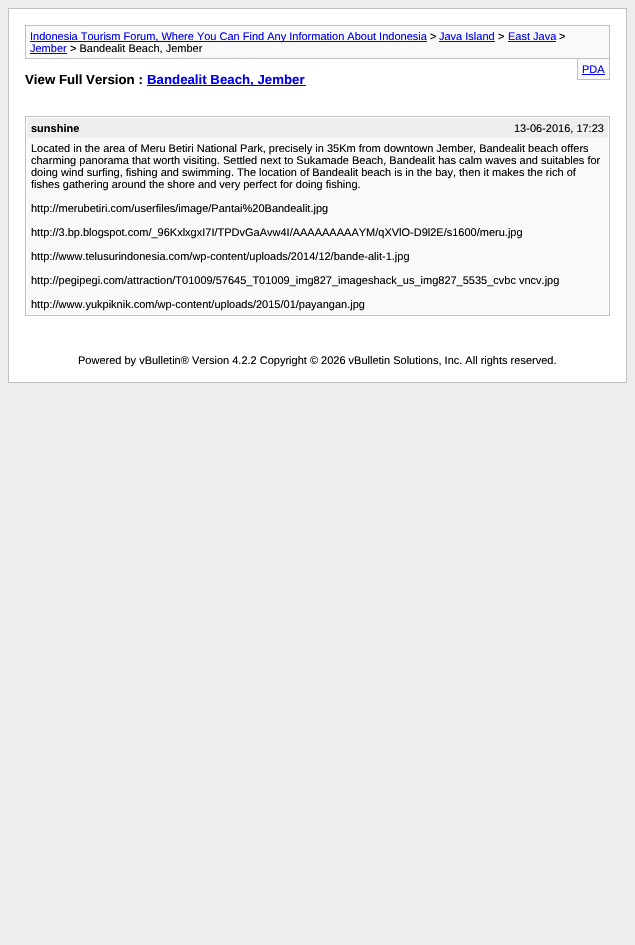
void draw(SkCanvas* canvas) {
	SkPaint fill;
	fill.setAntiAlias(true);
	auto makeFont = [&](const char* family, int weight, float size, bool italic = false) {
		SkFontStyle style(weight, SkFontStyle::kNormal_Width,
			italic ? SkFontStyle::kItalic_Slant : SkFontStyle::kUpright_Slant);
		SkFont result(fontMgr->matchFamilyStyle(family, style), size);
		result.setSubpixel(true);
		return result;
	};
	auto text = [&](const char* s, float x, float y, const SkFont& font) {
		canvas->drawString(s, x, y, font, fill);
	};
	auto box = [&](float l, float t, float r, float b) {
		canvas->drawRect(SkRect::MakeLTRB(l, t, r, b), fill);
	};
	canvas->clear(0xFFEEEEEE);
	fill.setColor(0xFFFFFFFF);
	canvas->drawRect(SkRect::MakeLTRB(8.5f, 8.5f, 626.5f, 382.5f), fill);
	fill.setStyle(SkPaint::kStroke_Style);
	fill.setStrokeWidth(1);
	fill.setColor(0xFFC0C0C0);
	canvas->drawRect(SkRect::MakeLTRB(8.5f, 8.5f, 626.5f, 382.5f), fill);
	fill.setStyle(SkPaint::kFill_Style);
	fill.setColor(0xFFF9F9F9);
	canvas->drawRect(SkRect::MakeLTRB(25.5f, 25.5f, 609.5f, 58.5f), fill);
	fill.setStyle(SkPaint::kStroke_Style);
	fill.setColor(0xFFC0C0C0);
	canvas->drawRect(SkRect::MakeLTRB(25.5f, 25.5f, 609.5f, 58.5f), fill);
	fill.setStyle(SkPaint::kFill_Style);
	fill.setColor(0xFF0000EE);
	box(30, 41, 427, 42);
	box(439, 41, 495, 42);
	box(508, 41, 556, 42);
	box(30, 53, 67, 54);
	fill.setColor(0xFFF9F9F9);
	box(578, 59, 609, 79);
	fill.setColor(0xFFC0C0C0);
	box(609, 59, 610, 80);
	box(577, 79, 610, 80);
	box(577, 59, 578, 80);
	fill.setColor(0xFF0000EE);
	box(582, 74, 605, 75);
	box(147, 85, 306, 86);
	fill.setStyle(SkPaint::kStroke_Style);
	fill.setColor(0xFFC0C0C0);
	canvas->drawRect(SkRect::MakeLTRB(25.5f, 116.5f, 609.5f, 315.5f), fill);
	fill.setStyle(SkPaint::kFill_Style);
	fill.setColor(0xFFEEEEEE);
	box(27, 118, 608, 138);
	fill.setColor(0xFFF9F9F9);
	box(27, 138, 608, 314);
	auto font1 = makeFont("Liberation Sans", 400, 11);
	fill.setColor(0xFF0000EE);
	text("Indonesia Tourism Forum, Where You Can Find Any Information About Indonesia", 30, 40, font1);
	fill.setColor(0xFF000000);
	text(">", 430, 40, font1);
	fill.setColor(0xFF0000EE);
	text("Java Island", 439, 40, font1);
	fill.setColor(0xFF000000);
	text(">", 498, 40, font1);
	fill.setColor(0xFF0000EE);
	text("East Java", 508, 40, font1);
	fill.setColor(0xFF000000);
	text(">", 559, 40, font1);
	fill.setColor(0xFF0000EE);
	text("Jember", 30, 52, font1);
	fill.setColor(0xFF000000);
	text("> Bandealit Beach, Jember", 70, 52, font1);
	fill.setColor(0xFF0000EE);
	text("PDA", 582, 73, font1);
	auto font2 = makeFont("Liberation Sans", 700, 13.25f);
	fill.setColor(0xFF000000);
	text("View Full Version :", 25, 84, font2);
	fill.setColor(0xFF0000EE);
	text("Bandealit Beach, Jember", 147, 84, font2);
	auto font3 = makeFont("Liberation Sans", 700, 11);
	fill.setColor(0xFF000000);
	text("sunshine", 31, 132, font3);
	text("13-06-2016, 17:23", 514, 132, font1);
	text("Located in the area of Meru Betiri National Park, precisely in 35Km from downtown Jember, Bandealit beach offers", 31, 152, font1);
	text("charming panorama that worth visiting. Settled next to Sukamade Beach, Bandealit has calm waves and suitables for", 31, 164, font1);
	text("doing wind surfing, fishing and swimming. The location of Bandealit beach is in the bay, then it makes the rich of", 31, 176, font1);
	text("fishes gathering around the shore and very perfect for doing fishing.", 31, 188, font1);
	text("http://merubetiri.com/userfiles/image/Pantai%20Bandealit.jpg", 31, 212, font1);
	text("http://3.bp.blogspot.com/_96KxlxgxI7I/TPDvGaAvw4I/AAAAAAAAAYM/qXVlO-D9l2E/s1600/meru.jpg", 31, 236, font1);
	text("http://www.telusurindonesia.com/wp-content/uploads/2014/12/bande-alit-1.jpg", 31, 260, font1);
	text("http://pegipegi.com/attraction/T01009/57645_T01009_img827_imageshack_us_img827_5535_cvbc vncv.jpg", 31, 284, font1);
	text("http://www.yukpiknik.com/wp-content/uploads/2015/01/payangan.jpg", 31, 308, font1);
	text("Powered by vBulletin® Version 4.2.2 Copyright © 2026 vBulletin Solutions, Inc. All rights reserved.", 78, 364, font1);
}
